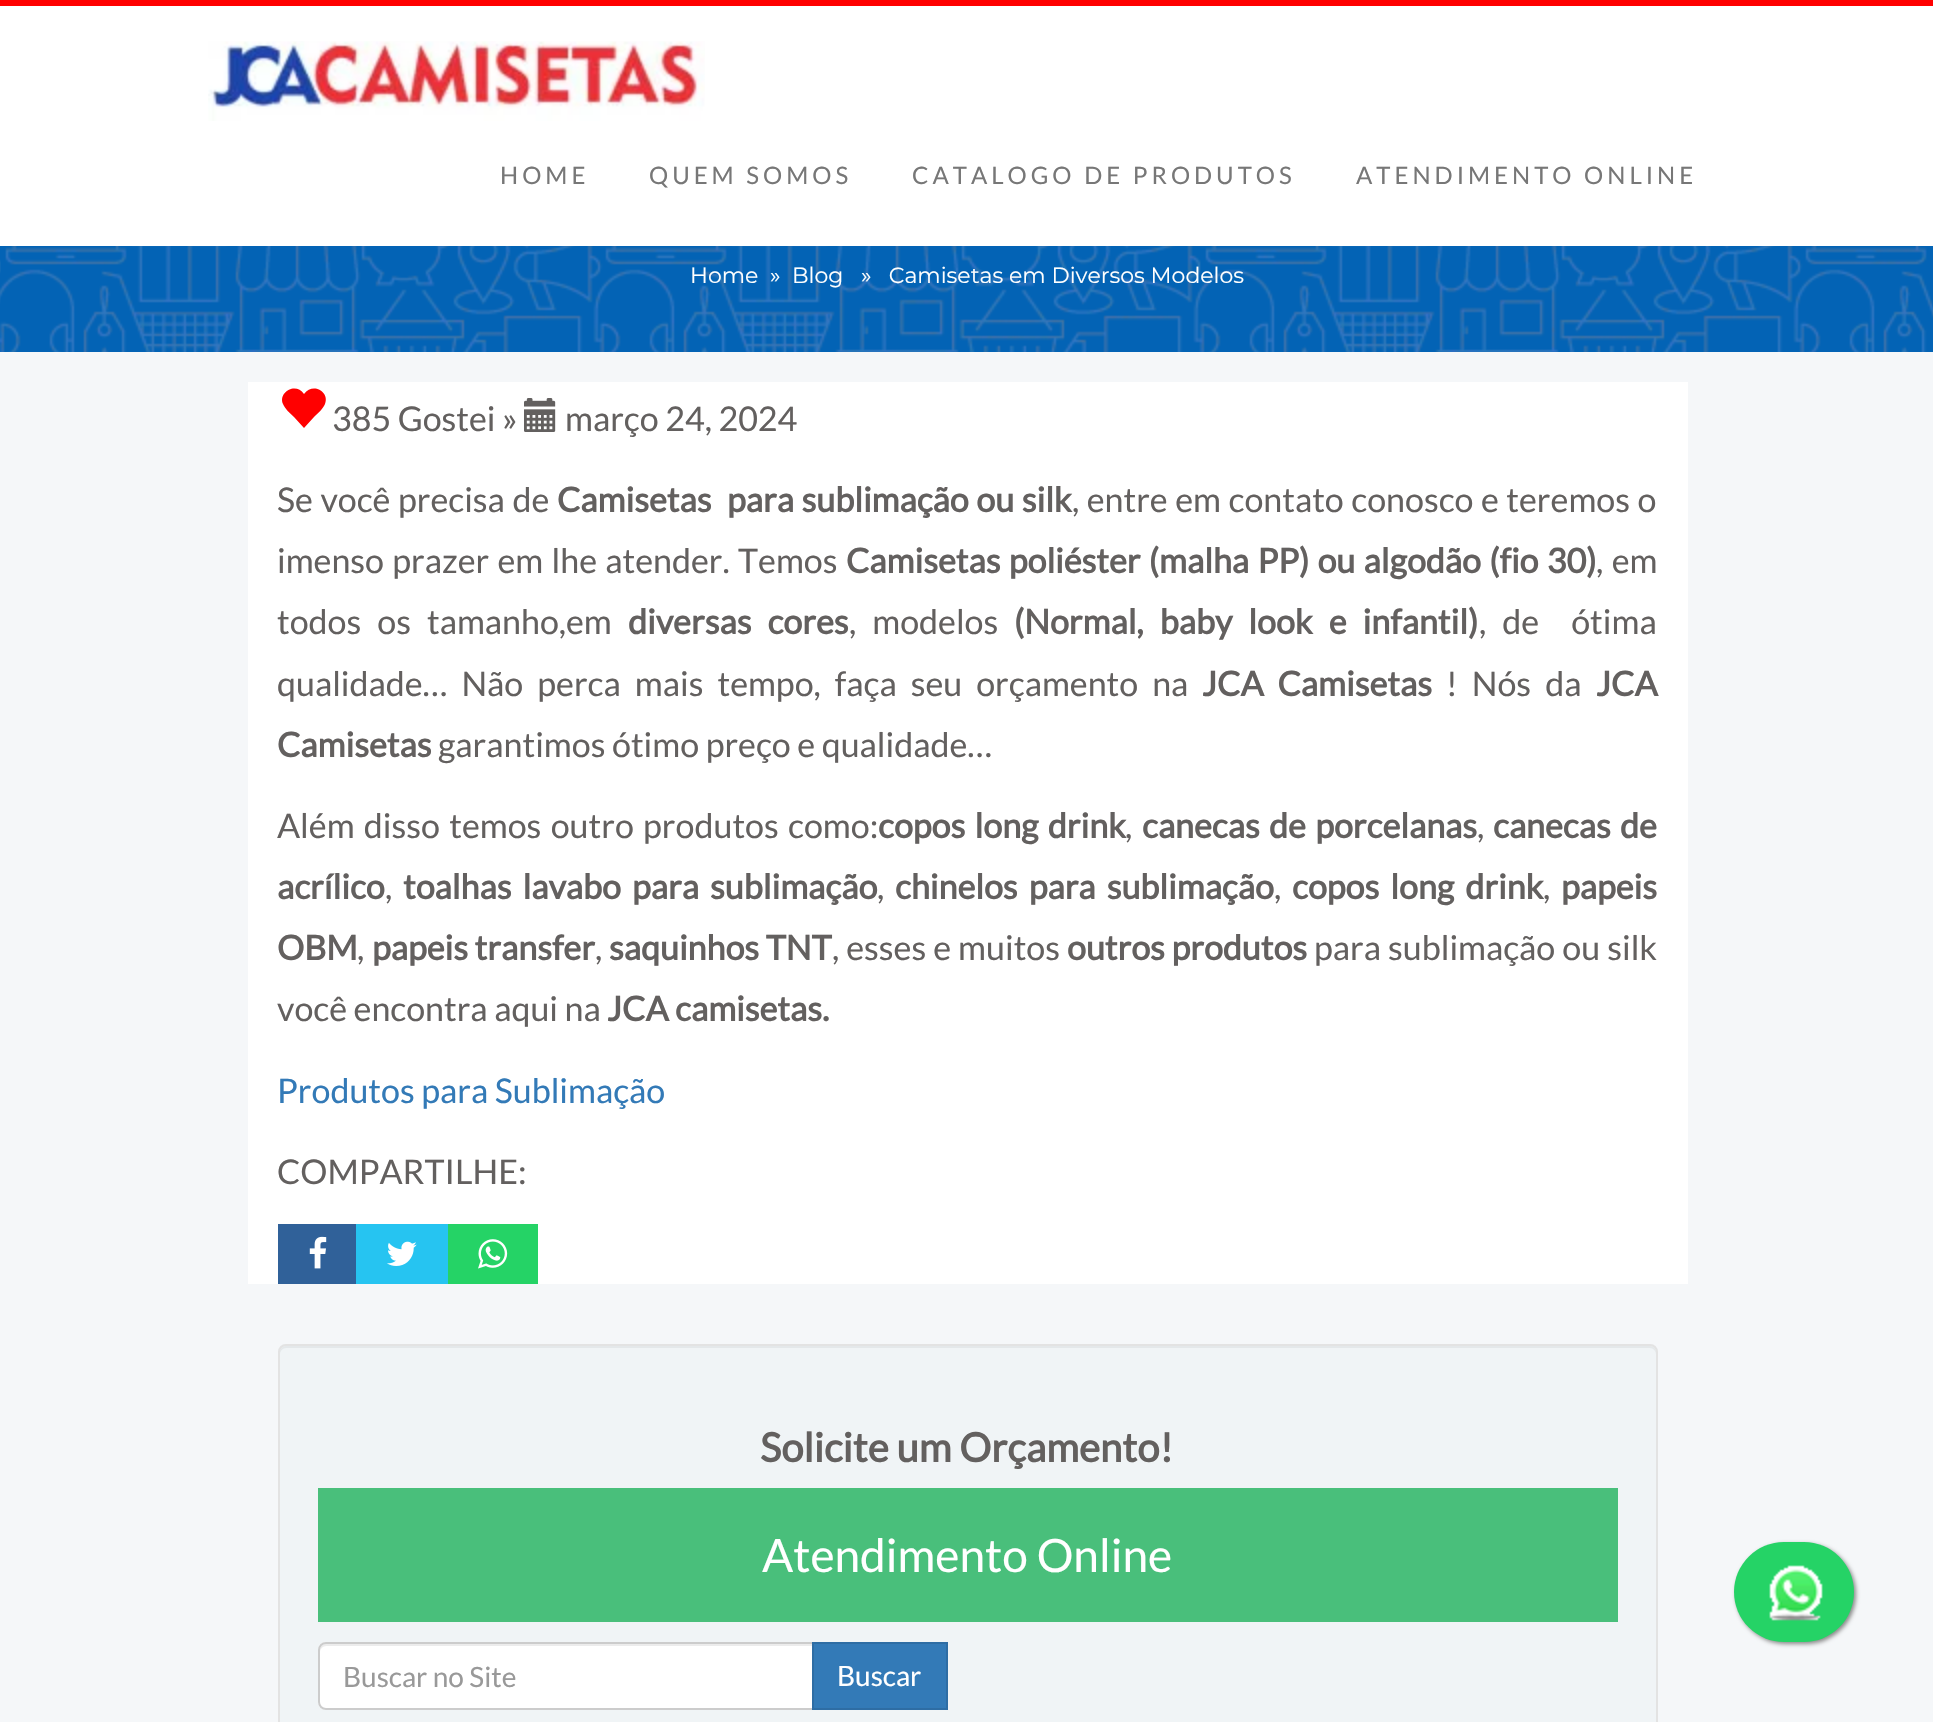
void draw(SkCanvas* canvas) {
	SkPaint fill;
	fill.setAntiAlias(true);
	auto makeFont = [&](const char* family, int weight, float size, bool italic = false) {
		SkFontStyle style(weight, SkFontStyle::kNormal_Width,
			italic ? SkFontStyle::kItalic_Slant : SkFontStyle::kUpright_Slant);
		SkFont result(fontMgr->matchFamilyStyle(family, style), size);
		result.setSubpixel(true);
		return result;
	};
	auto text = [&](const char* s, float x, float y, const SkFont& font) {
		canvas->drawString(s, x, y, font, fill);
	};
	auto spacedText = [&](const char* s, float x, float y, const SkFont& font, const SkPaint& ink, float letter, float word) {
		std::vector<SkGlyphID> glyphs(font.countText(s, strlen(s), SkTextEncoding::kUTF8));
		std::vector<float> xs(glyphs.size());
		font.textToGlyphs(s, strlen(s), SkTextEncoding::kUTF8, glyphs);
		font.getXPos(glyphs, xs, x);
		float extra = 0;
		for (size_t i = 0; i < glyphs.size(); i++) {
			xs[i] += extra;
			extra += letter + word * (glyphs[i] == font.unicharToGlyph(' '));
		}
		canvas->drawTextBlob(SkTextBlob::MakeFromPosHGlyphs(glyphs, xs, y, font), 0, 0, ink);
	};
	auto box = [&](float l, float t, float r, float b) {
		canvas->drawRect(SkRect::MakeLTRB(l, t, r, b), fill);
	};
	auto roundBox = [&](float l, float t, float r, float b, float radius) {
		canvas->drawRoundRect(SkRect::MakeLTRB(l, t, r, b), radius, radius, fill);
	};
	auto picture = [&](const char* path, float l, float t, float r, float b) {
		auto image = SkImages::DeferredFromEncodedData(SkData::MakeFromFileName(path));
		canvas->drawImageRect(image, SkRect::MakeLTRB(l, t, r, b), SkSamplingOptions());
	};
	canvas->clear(0xFFF5F7F9);
	fill.setColor(0xFFFFFFFF);
	box(0, 6, 1933, 246);
	fill.setColor(0xFFFF0000);
	box(0, 0, 1933, 6);
	picture("image0.png", 208, 41, 705, 121);
	fill.setColor(0xFF0363B5);
	box(0, 246, 1933, 352);
	picture("image1.png", 0, 246, 1933, 352);
	fill.setColor(0xFFFFFFFF);
	box(248, 382, 1688, 1284);
	fill.setColor(0xFFFF0000);
	canvas->drawPath(SkPathBuilder().moveTo(304, 394).cubicTo(313, 382, 330, 392, 325, 404).cubicTo(323, 409, 318, 413, 314, 417).lineTo(304, 428).lineTo(294, 417).cubicTo(290, 413, 285, 409, 283, 404).cubicTo(278, 392, 296, 382, 304, 394).close().detach(), fill);
	picture("image2.png", 524, 398, 556, 432);
	fill.setColor(0xFF306199);
	box(278, 1224, 356, 1284);
	picture("image3.png", 309, 1236, 327, 1269);
	fill.setColor(0xFF26C4F1);
	box(356, 1224, 448, 1284);
	picture("image4.png", 387, 1241, 417, 1266);
	fill.setColor(0xFF25D366);
	box(448, 1224, 538, 1284);
	picture("image5.png", 478, 1239, 508, 1269);
	fill.setColor(0xFFF0F4F6);
	roundBox(278, 1344, 1658, 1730, 8);
	fill.setColor(0xFFE4E8EA);
	canvas->drawPath(SkPathBuilder().moveTo(286, 1348).lineTo(1650, 1348).cubicTo(1653, 1348, 1656, 1351, 1656, 1354).lineTo(1656, 1352).cubicTo(1656, 1349, 1653, 1346, 1650, 1346).lineTo(286, 1346).cubicTo(283, 1346, 280, 1349, 280, 1352).lineTo(280, 1354).cubicTo(280, 1351, 283, 1348, 286, 1348).close().detach(), fill);
	fill.setStyle(SkPaint::kStroke_Style);
	fill.setStrokeWidth(2);
	fill.setColor(0xFFE3E3E3);
	canvas->drawRoundRect(SkRect::MakeLTRB(279, 1345, 1657, 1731), 7, 7, fill);
	fill.setStyle(SkPaint::kFill_Style);
	fill.setColor(0xFF49BF7B);
	box(318, 1488, 1618, 1622);
	fill.setColor(0xFFFFFFFF);
	canvas->drawPath(SkPathBuilder().moveTo(326, 1642).lineTo(814, 1642).lineTo(814, 1710).lineTo(326, 1710).cubicTo(321.5f, 1710, 318, 1706.5f, 318, 1702).lineTo(318, 1650).cubicTo(318, 1645.5f, 321.5f, 1642, 326, 1642).close().detach(), fill);
	fill.setColor(0xFFECECEC);
	canvas->drawPath(SkPathBuilder().moveTo(326, 1646).lineTo(812, 1646).lineTo(812, 1644).lineTo(326, 1644).cubicTo(321, 1644, 320, 1648, 320, 1652).cubicTo(320, 1649, 323, 1646, 326, 1646).close().detach(), fill);
	fill.setStyle(SkPaint::kStroke_Style);
	fill.setColor(0xFFCCCCCC);
	canvas->drawPath(SkPathBuilder().moveTo(326, 1643).lineTo(813, 1643).lineTo(813, 1709).lineTo(326, 1709).cubicTo(322, 1709, 319, 1706, 319, 1702).lineTo(319, 1650).cubicTo(319, 1646, 322, 1643, 326, 1643).close().detach(), fill);
	fill.setStyle(SkPaint::kFill_Style);
	fill.setColor(0xFF337AB7);
	canvas->drawRect(SkRect::MakeLTRB(813, 1643, 947, 1709), fill);
	fill.setStyle(SkPaint::kStroke_Style);
	fill.setColor(0xFF2E6DA4);
	canvas->drawRect(SkRect::MakeLTRB(813, 1643, 947, 1709), fill);
	fill.setStyle(SkPaint::kFill_Style);
	fill.setColor(0xFF888888);
	fill.setMaskFilter(SkMaskFilter::MakeBlur(kNormal_SkBlurStyle, 2));
	canvas->drawRoundRect(SkRect::MakeLTRB(1736, 1544, 1856, 1644), 50, 50, fill);
	fill.setMaskFilter(nullptr);
	fill.setColor(0xFF25D366);
	roundBox(1734, 1542, 1854, 1642, 50);
	picture("image6.png", 1769, 1565, 1823, 1621);
	auto font1 = makeFont("Lato", 400, 24);
	fill.setColor(0xFF777777);
	spacedText("HOME", 500, 184, font1, fill, 4, 0);
	spacedText("QUEM SOMOS", 649, 184, font1, fill, 4, 0);
	spacedText("CATALOGO DE PRODUTOS", 912, 184, font1, fill, 4, 0);
	spacedText("ATENDIMENTO ONLINE", 1356, 184, font1, fill, 4, 0);
	auto font2 = makeFont("Montserrat", 100, 22);
	fill.setColor(0xFFFFFFFF);
	text("Home", 690, 283, font2);
	text("»", 770, 283, font2);
	text("Blog", 792, 283, font2);
	text("»   Camisetas em Diversos Modelos", 861, 283, font2);
	auto font3 = makeFont("Lato", 400, 34);
	fill.setColor(0xFF63605F);
	text("385 Gostei »", 332, 431, font3);
	text("março 24, 2024", 565, 431, font3);
	spacedText("Se você precisa de", 277, 512, font3, fill, 0, 1);
	auto font4 = makeFont("Lato", 700, 34);
	text("Camisetas", 557, 512, font4);
	spacedText("para sublimação ou silk", 727, 512, font4, fill, 0, 1);
	spacedText(", entre em contato conosco e teremos o", 1072, 512, font3, fill, 0, 1);
	spacedText("imenso prazer em lhe atender. Temos", 277, 573, font3, fill, 0, 1.75f);
	spacedText("Camisetas poliéster (malha PP) ou algodão (fio 30)", 846, 573, font4, fill, 0, 1.75f);
	spacedText(", em", 1596, 573, font3, fill, 0, 2);
	spacedText("todos os tamanho,em", 277, 634, font3, fill, 0, 9.5f);
	spacedText("diversas cores", 628, 634, font4, fill, 0, 9.5f);
	spacedText(", modelos", 849, 634, font3, fill, 0, 9.5f);
	spacedText("(Normal, baby look e infantil)", 1014, 634, font4, fill, 0, 9.5f);
	spacedText(", de  ótima", 1479, 634, font3, fill, 0, 9.5f);
	spacedText("qualidade… Não perca mais tempo, faça seu orçamento na", 277, 696, font3, fill, 0, 7.5f);
	spacedText("JCA Camisetas", 1202, 696, font4, fill, 0, 7.5f);
	spacedText("! Nós da", 1446, 696, font3, fill, 0, 7.5f);
	text("JCA", 1596, 696, font4);
	text("Camisetas", 277, 757, font4);
	text("garantimos ótimo preço e qualidade…", 438, 757, font3);
	spacedText("Além disso temos outro produtos como:", 277, 838, font3, fill, 0, 2.75f);
	spacedText("copos long drink", 878, 838, font4, fill, 0, 2.75f);
	text(",", 1125, 838, font3);
	spacedText("canecas de porcelanas", 1142, 838, font4, fill, 0, 2.75f);
	text(",", 1477, 838, font3);
	spacedText("canecas de", 1493, 838, font4, fill, 0, 2.75f);
	text("acrílico", 277, 899, font4);
	text(",", 385, 899, font3);
	spacedText("toalhas lavabo para sublimação", 403, 899, font4, fill, 0, 4.5f);
	text(",", 877, 899, font3);
	spacedText("chinelos para sublimação", 895, 899, font4, fill, 0, 4.5f);
	text(",", 1274, 899, font3);
	spacedText("copos long drink", 1292, 899, font4, fill, 0, 4.5f);
	text(",", 1543, 899, font3);
	text("papeis", 1561, 899, font4);
	text("OBM", 277, 960, font4);
	text(",", 357, 960, font3);
	text("papeis transfer", 372, 960, font4);
	text(",", 595, 960, font3);
	text("saquinhos TNT", 609, 960, font4);
	spacedText(", esses e muitos", 832, 960, font3, fill, 0, 0.5f);
	text("outros produtos", 1067, 960, font4);
	spacedText("para sublimação ou silk", 1314, 960, font3, fill, 0, 0.5f);
	text("você encontra aqui na", 277, 1021, font3);
	text("JCA camisetas.", 607, 1021, font4);
	fill.setColor(0xFF337AB7);
	text("Produtos para Sublimação", 277, 1103, font3);
	fill.setColor(0xFF63605F);
	text("COMPARTILHE:", 277, 1184, font3);
	auto font5 = makeFont("Lato", 700, 40);
	text("Solicite um Orçamento!", 760, 1462, font5);
	auto font6 = makeFont("Lato", 400, 46);
	fill.setColor(0xFFFFFFFF);
	text("Atendimento Online", 762, 1572, font6);
	auto font7 = makeFont("Lato", 400, 28);
	fill.setColor(0xFF999999);
	text("Buscar no Site", 343, 1687, font7);
	fill.setColor(0xFFFFFFFF);
	text("Buscar", 837, 1686, font7);
}
